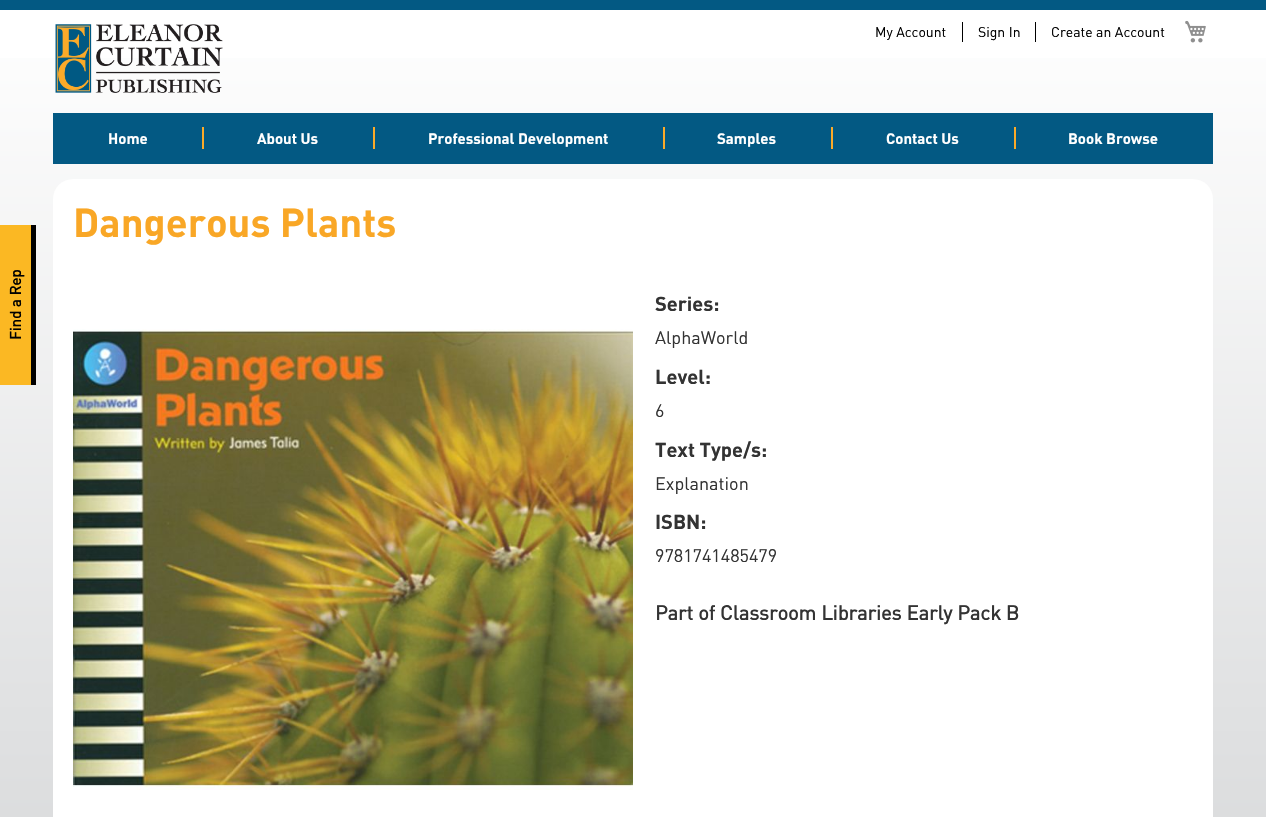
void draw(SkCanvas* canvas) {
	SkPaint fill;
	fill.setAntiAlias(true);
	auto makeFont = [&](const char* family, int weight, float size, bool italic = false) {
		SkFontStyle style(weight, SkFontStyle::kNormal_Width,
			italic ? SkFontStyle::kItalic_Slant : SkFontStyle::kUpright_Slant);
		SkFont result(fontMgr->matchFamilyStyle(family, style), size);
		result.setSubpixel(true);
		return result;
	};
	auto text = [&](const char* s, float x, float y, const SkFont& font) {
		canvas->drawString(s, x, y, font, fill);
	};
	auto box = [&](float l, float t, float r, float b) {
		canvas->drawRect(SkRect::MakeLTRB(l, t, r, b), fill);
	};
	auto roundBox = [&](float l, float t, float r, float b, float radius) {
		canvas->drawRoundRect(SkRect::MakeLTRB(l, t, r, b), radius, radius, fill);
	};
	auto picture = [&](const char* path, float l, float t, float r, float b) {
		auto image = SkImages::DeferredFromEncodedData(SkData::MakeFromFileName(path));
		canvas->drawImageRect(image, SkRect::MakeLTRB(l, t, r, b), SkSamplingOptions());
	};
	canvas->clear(0xFFFFFFFF);
	{
		const SkColor colors[] = {0xFFFFFFFF, 0xFFC1C3C5};
		const float stops[] = {0, 1};
		const SkPoint ends[] = {{633, 0}, {633, 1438}};
		fill.setShader(SkGradientShader::MakeLinear(ends, colors, stops, 2, SkTileMode::kClamp));
		fill.setAlpha(255);
	}
	box(0, 58, 1266, 817);
	fill.setShader(nullptr);
	fill.setColor(0xFFFBB823);
	box(0, 225, 31, 385);
	fill.setColor(0xFF000000);
	box(31, 225, 36, 385);
	picture("image0.png", 55, 24, 223, 93);
	fill.setColor(0xFF035983);
	box(0, 0, 1266, 10);
	fill.setColor(0xFF000000);
	box(962, 22, 963, 42);
	box(1035, 22, 1036, 42);
	picture("image1.png", 1185, 20, 1206, 43);
	fill.setColor(0xFF035983);
	box(53, 113, 1213, 164);
	fill.setColor(0xFFFBAA29);
	box(202, 127, 204, 149);
	box(373, 127, 375, 149);
	box(663, 127, 665, 149);
	box(831, 127, 833, 149);
	box(1014, 127, 1016, 149);
	fill.setColor(0xFFFFFFFF);
	roundBox(53, 179, 1213, 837, 20);
	picture("image2.png", 73, 329, 633, 790);
	auto font1 = makeFont("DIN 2", 700, 15);
	fill.setColor(0xFF000000);
	canvas->save();
	canvas->rotate(-90, 21, 340);
	text("Find a Rep", 21, 340, font1);
	canvas->restore();
	auto font2 = makeFont("DIN", 400, 14);
	text("My Account", 875, 37, font2);
	text("Sign In", 978, 37, font2);
	text("Create an Account", 1051, 37, font2);
	auto font3 = makeFont("DIN", 700, 15);
	fill.setColor(0xFFFFFFFF);
	text("Home", 108, 144, font3);
	text("About Us", 257, 144, font3);
	text("Professional Development", 428, 144, font3);
	text("Samples", 717, 144, font3);
	text("Contact Us", 886, 144, font3);
	text("Book Browse", 1068, 144, font3);
	auto font4 = makeFont("DIN", 700, 40);
	fill.setColor(0xFFF9A726);
	text("Dangerous Plants", 73, 237, font4);
	auto font5 = makeFont("DIN", 700, 20);
	fill.setColor(0xFF333333);
	text("Series:", 655, 311, font5);
	auto font6 = makeFont("DIN", 400, 18);
	text("AlphaWorld", 655, 344, font6);
	text("Level:", 655, 384, font5);
	text("6", 655, 417, font6);
	text("Text Type/s:", 655, 457, font5);
	text("Explanation", 655, 490, font6);
	text("ISBN:", 655, 529, font5);
	text("9781741485479", 655, 562, font6);
	auto font7 = makeFont("DIN 2", 700, 20);
	text("Part of Classroom Libraries Early Pack B", 655, 620, font7);
}
